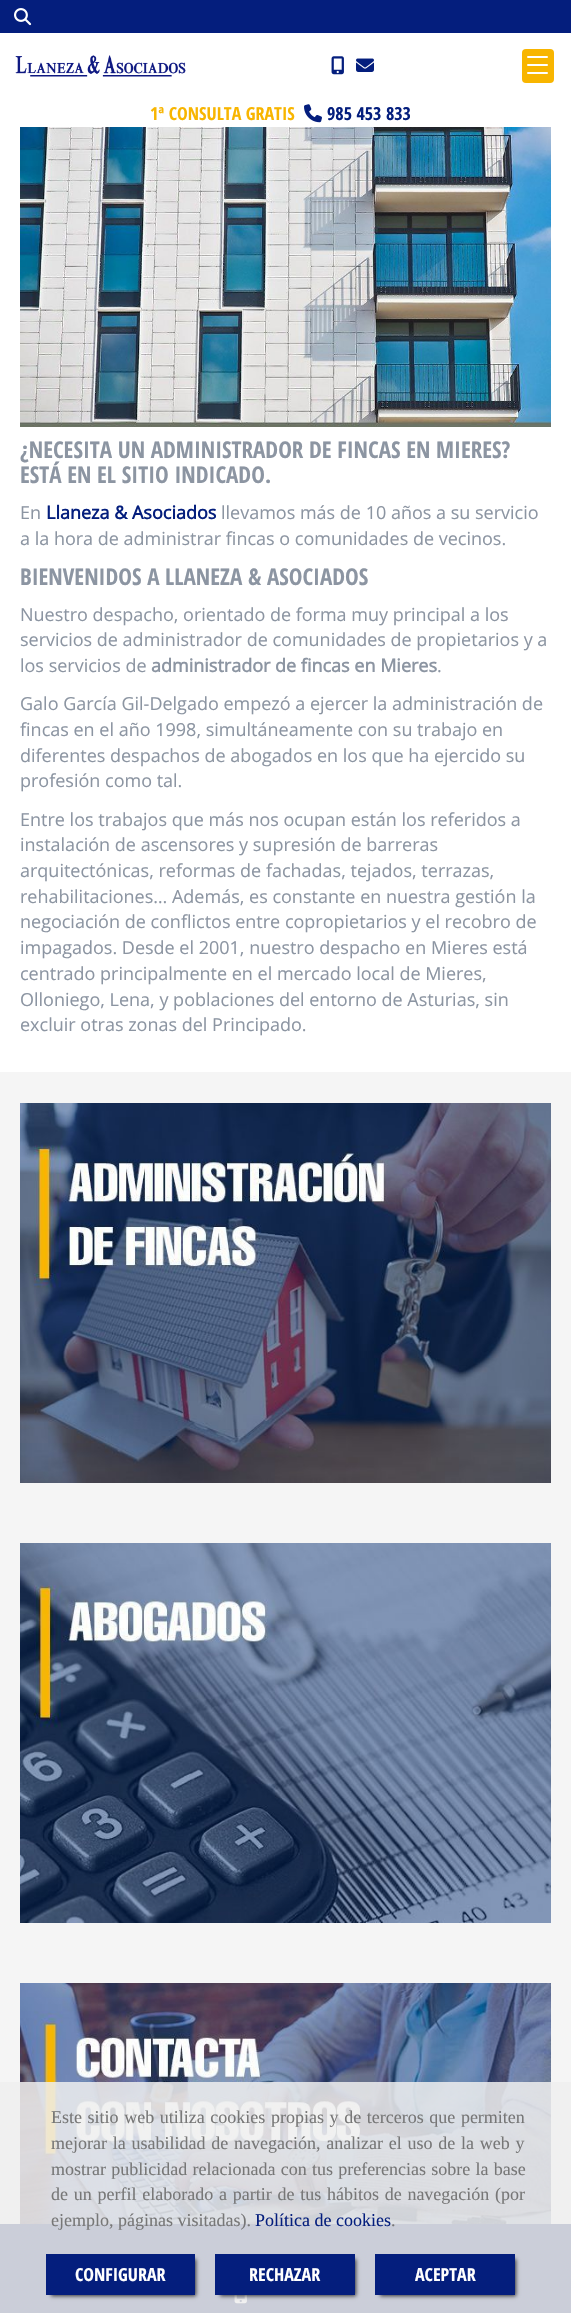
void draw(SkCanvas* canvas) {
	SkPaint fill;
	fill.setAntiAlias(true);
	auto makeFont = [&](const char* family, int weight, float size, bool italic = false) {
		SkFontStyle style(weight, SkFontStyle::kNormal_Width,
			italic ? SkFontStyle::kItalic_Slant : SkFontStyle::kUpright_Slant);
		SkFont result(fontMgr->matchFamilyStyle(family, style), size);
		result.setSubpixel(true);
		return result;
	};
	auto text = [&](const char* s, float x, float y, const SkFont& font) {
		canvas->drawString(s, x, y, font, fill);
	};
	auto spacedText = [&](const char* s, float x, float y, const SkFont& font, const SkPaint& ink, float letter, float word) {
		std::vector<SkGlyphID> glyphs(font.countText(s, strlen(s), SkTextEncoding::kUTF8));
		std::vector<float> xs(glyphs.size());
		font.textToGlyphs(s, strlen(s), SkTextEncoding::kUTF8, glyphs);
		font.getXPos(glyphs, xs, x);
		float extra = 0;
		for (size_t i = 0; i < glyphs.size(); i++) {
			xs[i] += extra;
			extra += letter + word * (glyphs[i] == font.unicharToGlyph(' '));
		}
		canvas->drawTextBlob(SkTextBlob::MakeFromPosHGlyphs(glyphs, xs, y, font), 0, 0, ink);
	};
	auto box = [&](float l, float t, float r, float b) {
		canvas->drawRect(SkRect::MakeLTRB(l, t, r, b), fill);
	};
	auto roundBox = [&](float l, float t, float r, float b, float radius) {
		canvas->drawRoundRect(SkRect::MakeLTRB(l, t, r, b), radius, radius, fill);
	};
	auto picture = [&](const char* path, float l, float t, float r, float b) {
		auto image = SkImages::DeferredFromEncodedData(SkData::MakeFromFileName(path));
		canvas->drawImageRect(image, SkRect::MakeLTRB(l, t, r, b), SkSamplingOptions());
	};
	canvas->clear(0xFFFFFFFF);
	fill.setColor(0xFF041E7D);
	box(0, 0, 571, 33);
	picture("image0.png", 14, 8, 32, 26);
	picture("image1.png", 15, 55, 186, 77);
	picture("image2.png", 331, 56, 344, 75);
	picture("image3.png", 356, 58, 374, 72);
	fill.setColor(0xFFF8B500);
	roundBox(522, 49, 554, 83, 4);
	fill.setColor(0xFFFFFFFF);
	roundBox(527, 64, 548, 66, 1);
	roundBox(527, 56, 548, 58, 1);
	roundBox(527, 72, 548, 74, 1);
	picture("image4.png", 304, 104, 322, 123);
	picture("image5.png", 20, 127, 551, 427);
	fill.setColor(0xFFF5F5F5);
	box(0, 1072, 571, 2224);
	picture("image6.png", 20, 1103, 551, 1483);
	picture("image7.png", 20, 1543, 551, 1923);
	picture("image8.png", 20, 1983, 551, 2224);
	fill.setColor(0xFF001359);
	box(0, 2224, 571, 2313);
	picture("image9.png", 234, 2295, 247, 2304);
	fill.setColor(0xD9EEEEEE);
	box(0, 2082, 571, 2313);
	fill.setColor(0xBF000000);
	fill.setMaskFilter(SkMaskFilter::MakeBlur(kNormal_SkBlurStyle, 2));
	canvas->drawRect(SkRect::MakeLTRB(51, 2259, 196, 2296), fill);
	fill.setMaskFilter(nullptr);
	fill.setColor(0xFF041E7D);
	box(46, 2254, 195, 2295);
	fill.setColor(0xBF000000);
	fill.setMaskFilter(SkMaskFilter::MakeBlur(kNormal_SkBlurStyle, 2));
	canvas->drawRect(SkRect::MakeLTRB(220, 2259, 356, 2296), fill);
	fill.setMaskFilter(nullptr);
	fill.setColor(0xFF041E7D);
	box(215, 2254, 355, 2295);
	fill.setColor(0xBF000000);
	fill.setMaskFilter(SkMaskFilter::MakeBlur(kNormal_SkBlurStyle, 2));
	canvas->drawRect(SkRect::MakeLTRB(380, 2259, 516, 2296), fill);
	fill.setMaskFilter(nullptr);
	fill.setColor(0xFF041E7D);
	box(375, 2254, 515, 2295);
	auto font1 = makeFont("Open Sans Condensed", 700, 18);
	fill.setColor(0xFFF8B500);
	text("1ª CONSULTA GRATIS", 150, 120, font1);
	fill.setColor(0xFF041E7D);
	text("985 453 833", 327, 120, font1);
	auto font2 = makeFont("Open Sans Condensed", 700, 23);
	fill.setColor(0xFF8C95A2);
	text("¿NECESITA UN ADMINISTRADOR DE FINCAS EN MIERES?", 20, 458, font2);
	text("ESTÁ EN EL SITIO INDICADO.", 20, 483, font2);
	auto font3 = makeFont("Open Sans", 400, 18);
	text("En", 20, 519, font3);
	auto font4 = makeFont("Open Sans", 700, 18);
	fill.setColor(0xFF041E7D);
	text("Llaneza & Asociados", 46, 519, font4);
	fill.setColor(0xFF8C95A2);
	text("llevamos más de 10 años a su servicio", 221, 519, font3);
	text("a la hora de administrar fincas o comunidades de vecinos.", 20, 545, font3);
	text("BIENVENIDOS A LLANEZA & ASOCIADOS", 20, 585, font2);
	text("Nuestro despacho, orientado de forma muy principal a los", 20, 621, font3);
	text("servicios de administrador de comunidades de propietarios y a", 20, 646, font3);
	text("los servicios de", 20, 672, font3);
	text("administrador de fincas en Mieres", 151, 672, font4);
	text(".", 437, 672, font3);
	text("Galo García Gil-Delgado empezó a ejercer la administración de", 20, 710, font3);
	text("fincas en el año 1998, simultáneamente con su trabajo en", 20, 736, font3);
	text("diferentes despachos de abogados en los que ha ejercido su", 20, 762, font3);
	text("profesión como tal.", 20, 787, font3);
	text("Entre los trabajos que más nos ocupan están los referidos a", 20, 826, font3);
	text("instalación de ascensores y supresión de barreras", 20, 851, font3);
	text("arquitectónicas, reformas de fachadas, tejados, terrazas,", 20, 877, font3);
	text("rehabilitaciones… Además, es constante en nuestra gestión la", 20, 903, font3);
	text("negociación de conflictos entre copropietarios y el recobro de", 20, 928, font3);
	text("impagados. Desde el 2001, nuestro despacho en Mieres está", 20, 954, font3);
	text("centrado principalmente en el mercado local de Mieres,", 20, 980, font3);
	text("Olloniego, Lena, y poblaciones del entorno de Asturias, sin", 20, 1006, font3);
	text("excluir otras zonas del Principado.", 20, 1031, font3);
	auto font5 = makeFont("Liberation Serif", 400, 18);
	fill.setColor(0xFF777777);
	spacedText("Este sitio web utiliza cookies propias y de terceros que permiten", 51, 2123, font5, fill, 0, 1.1f);
	spacedText("mejorar la usabilidad de navegación, analizar el uso de la web y", 51, 2149, font5, fill, 0, 1.25f);
	spacedText("mostrar publicidad relacionada con tus preferencias sobre la base", 51, 2175, font5, fill, 0, 0.75f);
	spacedText("de un perfil elaborado a partir de tus hábitos de navegación (por", 51, 2200, font5, fill, 0, 1.25f);
	text("ejemplo, páginas visitadas).", 51, 2226, font5);
	fill.setColor(0xFF041E7D);
	text("Política de cookies", 255, 2226, font5);
	fill.setColor(0xFF777777);
	text(".", 391, 2226, font5);
	fill.setColor(0xFFFFFFFF);
	text("CONFIGURAR", 75, 2281, font1);
	text("RECHAZAR", 249, 2281, font1);
	text("ACEPTAR", 415, 2281, font1);
}
